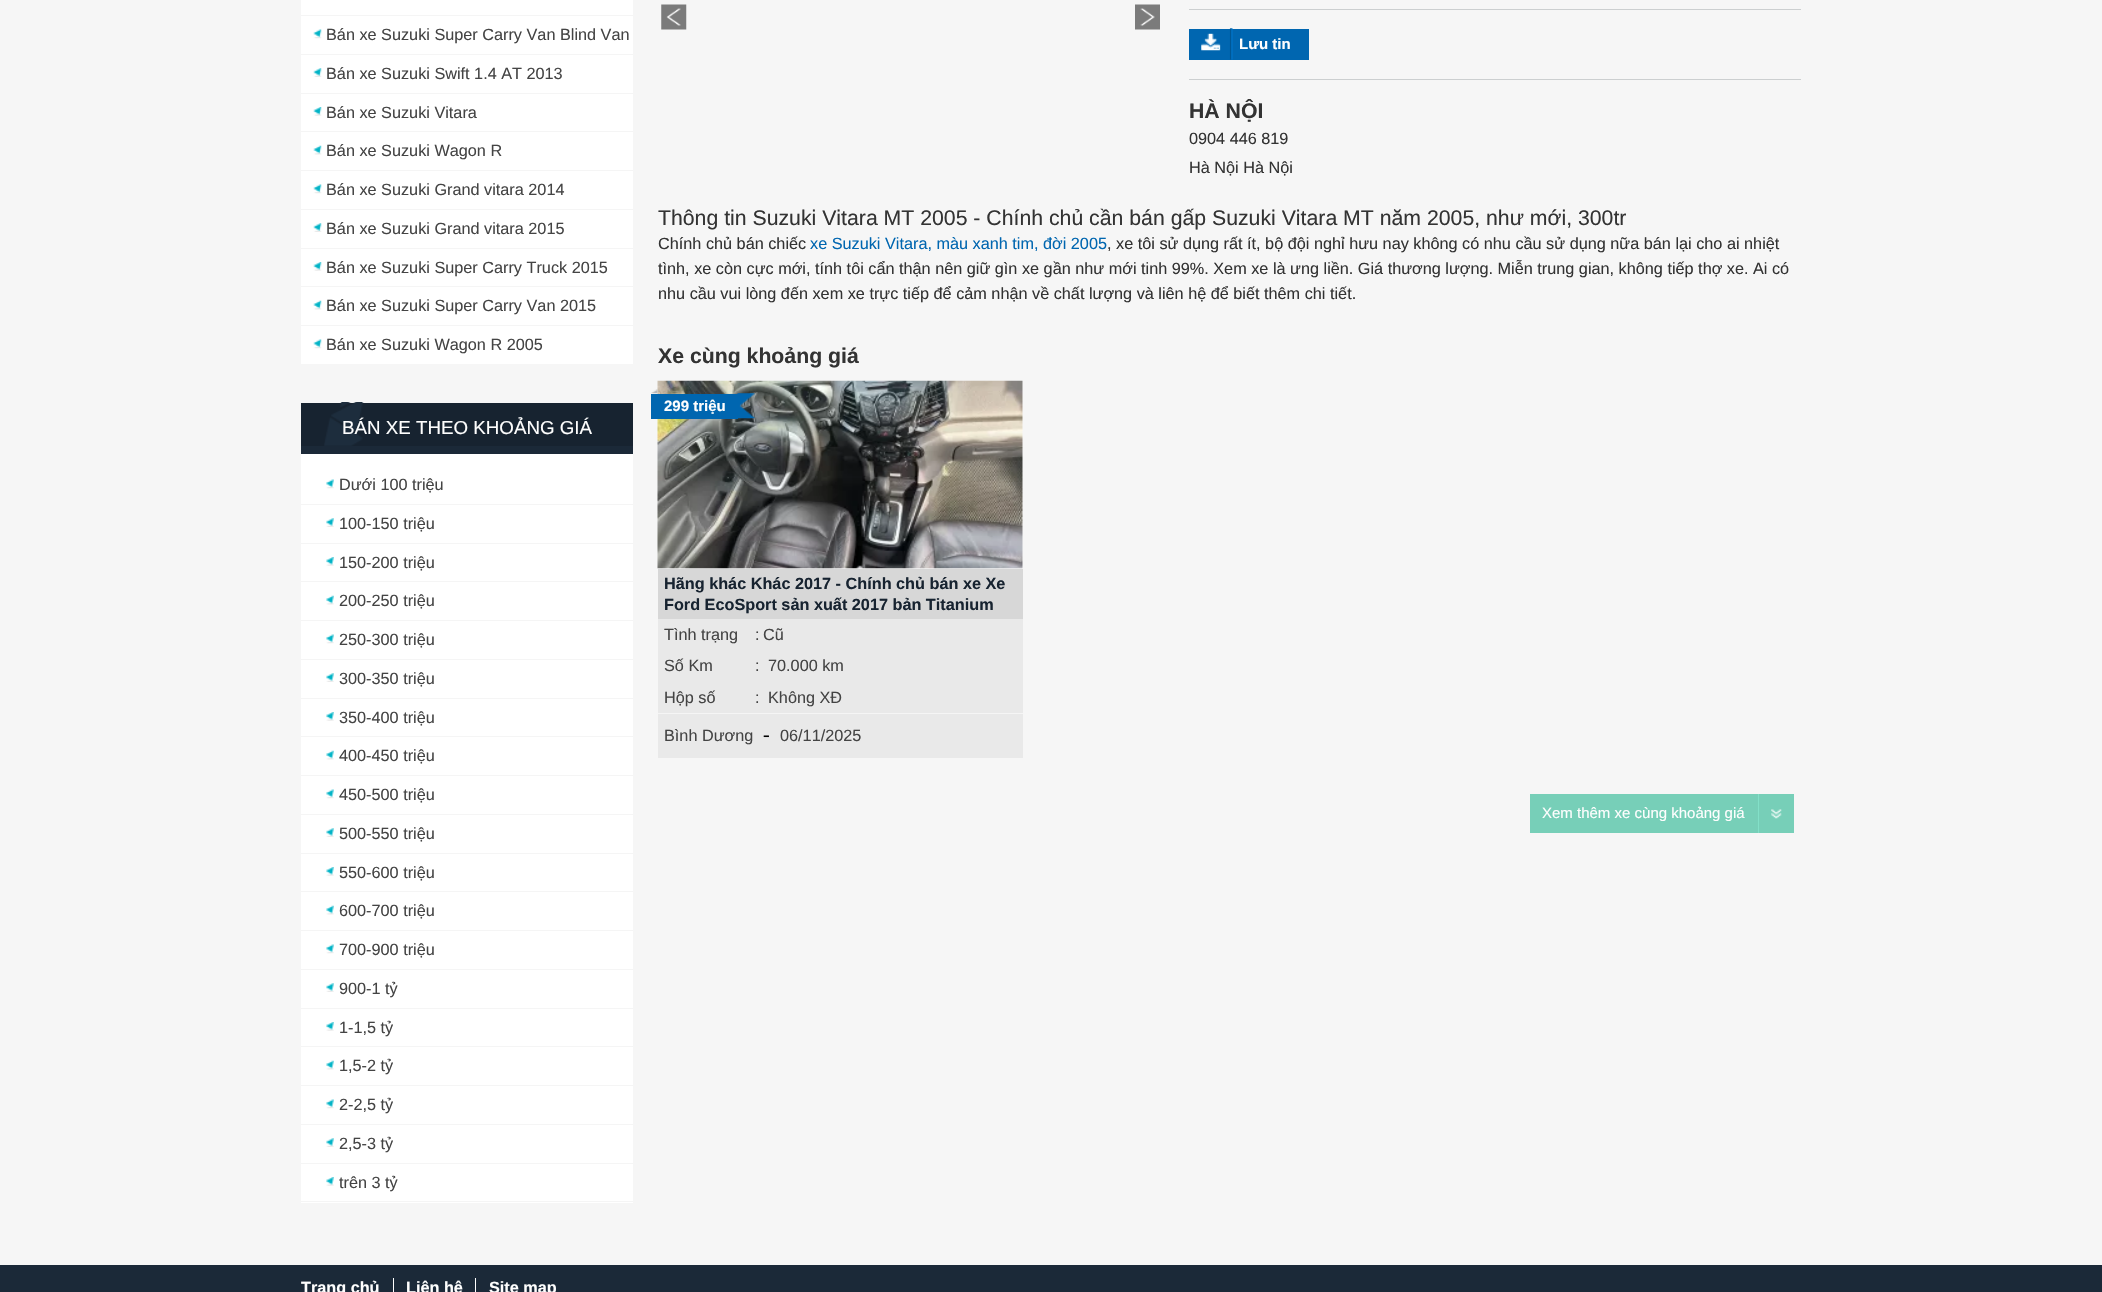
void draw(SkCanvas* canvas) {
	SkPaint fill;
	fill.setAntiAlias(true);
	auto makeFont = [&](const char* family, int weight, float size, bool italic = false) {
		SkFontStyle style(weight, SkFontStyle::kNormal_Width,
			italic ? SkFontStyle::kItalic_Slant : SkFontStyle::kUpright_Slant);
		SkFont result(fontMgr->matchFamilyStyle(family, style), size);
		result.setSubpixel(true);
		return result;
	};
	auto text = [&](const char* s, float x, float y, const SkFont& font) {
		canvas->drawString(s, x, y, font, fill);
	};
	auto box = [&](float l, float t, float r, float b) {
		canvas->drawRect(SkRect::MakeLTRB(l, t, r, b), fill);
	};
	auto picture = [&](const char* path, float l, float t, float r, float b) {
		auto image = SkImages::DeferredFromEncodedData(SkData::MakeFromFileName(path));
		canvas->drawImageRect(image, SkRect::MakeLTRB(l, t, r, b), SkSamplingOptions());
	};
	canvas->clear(0xFF1B2938);
	fill.setColor(0xFFF6F6F6);
	box(0, 0, 2102, 1265);
	fill.setColor(0xFFFFFFFF);
	box(301, 0, 633, 364);
	fill.setColor(0xFFF5F5F5);
	box(301, 15, 633, 16);
	box(301, 54, 633, 55);
	picture("image0.png", 313, 29, 322, 39);
	box(301, 93, 633, 94);
	picture("image1.png", 313, 68, 322, 77);
	box(301, 131, 633, 132);
	picture("image2.png", 313, 107, 322, 116);
	box(301, 170, 633, 171);
	picture("image3.png", 313, 145, 322, 155);
	box(301, 209, 633, 210);
	picture("image0.png", 313, 184, 322, 194);
	box(301, 248, 633, 249);
	picture("image1.png", 313, 223, 322, 232);
	box(301, 286, 633, 287);
	picture("image2.png", 313, 262, 322, 271);
	box(301, 325, 633, 326);
	picture("image3.png", 313, 300, 322, 310);
	picture("image0.png", 313, 339, 322, 349);
	fill.setColor(0xFFFFFFFF);
	box(301, 454, 633, 1203);
	fill.setColor(0xFF1B2938);
	box(301, 446, 633, 454);
	fill.setColor(0xFF172330);
	box(301, 403, 633, 446);
	picture("image4.png", 324, 402, 364, 446);
	fill.setColor(0xFFF5F5F5);
	box(301, 504, 633, 505);
	picture("image5.png", 326, 479, 334, 489);
	box(301, 543, 633, 544);
	picture("image6.png", 326, 518, 334, 527);
	box(301, 581, 633, 582);
	picture("image7.png", 326, 557, 334, 566);
	box(301, 620, 633, 621);
	picture("image8.png", 326, 595, 334, 605);
	box(301, 659, 633, 660);
	picture("image5.png", 326, 634, 334, 644);
	box(301, 698, 633, 699);
	picture("image6.png", 326, 673, 334, 682);
	box(301, 736, 633, 737);
	picture("image7.png", 326, 712, 334, 721);
	box(301, 775, 633, 776);
	picture("image8.png", 326, 750, 334, 760);
	box(301, 814, 633, 815);
	picture("image5.png", 326, 789, 334, 799);
	box(301, 853, 633, 854);
	picture("image6.png", 326, 828, 334, 837);
	box(301, 891, 633, 892);
	picture("image7.png", 326, 867, 334, 876);
	box(301, 930, 633, 931);
	picture("image8.png", 326, 905, 334, 915);
	box(301, 969, 633, 970);
	picture("image5.png", 326, 944, 334, 954);
	box(301, 1008, 633, 1009);
	picture("image6.png", 326, 983, 334, 992);
	box(301, 1046, 633, 1047);
	picture("image7.png", 326, 1022, 334, 1031);
	box(301, 1085, 633, 1086);
	picture("image8.png", 326, 1060, 334, 1070);
	box(301, 1124, 633, 1125);
	picture("image5.png", 326, 1099, 334, 1109);
	box(301, 1163, 633, 1164);
	picture("image6.png", 326, 1138, 334, 1147);
	box(301, 1201, 633, 1202);
	picture("image7.png", 326, 1177, 334, 1186);
	picture("image9.png", 661, 4, 687, 30);
	picture("image10.png", 1135, 4, 1160, 30);
	fill.setColor(0xFFCCCFD0);
	box(1189, 9, 1801, 10);
	box(1189, 79, 1801, 80);
	fill.setColor(0xFF0066B0);
	box(1189, 29, 1309, 60);
	picture("image11.png", 1201, 28, 1233, 60);
	picture("image12.png", 657, 380, 1023, 569);
	picture("image13.png", 651, 389, 658, 394);
	box(651, 394, 738, 419);
	picture("image14.png", 737, 393, 755, 419);
	fill.setColor(0xFFE9E9E9);
	box(658, 619, 1023, 758);
	fill.setColor(0xFFD7D7D7);
	box(658, 569, 1023, 619);
	fill.setColor(0xFFF5F5F5);
	box(658, 713, 1023, 714);
	fill.setColor(0xFF77CFB8);
	box(1530, 794, 1794, 833);
	fill.setColor(0xFF83E0C8);
	box(1758, 794, 1759, 833);
	picture("image15.png", 1771, 809, 1782, 819);
	fill.setColor(0xFFFEFEFE);
	box(393, 1278, 394, 1292);
	box(475, 1278, 476, 1292);
	auto font1 = makeFont("Liberation Sans", 400, 16.25f);
	fill.setColor(0xFF444444);
	text("Bán xe Suzuki Super Carry Van Blind Van", 326, 40, font1);
	text("Bán xe Suzuki Swift 1.4 AT 2013", 326, 79, font1);
	text("Bán xe Suzuki Vitara", 326, 118, font1);
	text("Bán xe Suzuki Wagon R", 326, 156, font1);
	text("Bán xe Suzuki Grand vitara 2014", 326, 195, font1);
	text("Bán xe Suzuki Grand vitara 2015", 326, 234, font1);
	text("Bán xe Suzuki Super Carry Truck 2015", 326, 273, font1);
	text("Bán xe Suzuki Super Carry Van 2015", 326, 311, font1);
	text("Bán xe Suzuki Wagon R 2005", 326, 350, font1);
	auto font2 = makeFont("Liberation Sans", 400, 18.75f);
	fill.setColor(0xFFFEFEFE);
	text("BÁN XE THEO KHOẢNG GIÁ", 342, 434, font2);
	fill.setColor(0xFF444444);
	text("Dưới 100 triệu", 339, 490, font1);
	text("100-150 triệu", 339, 529, font1);
	text("150-200 triệu", 339, 568, font1);
	text("200-250 triệu", 339, 606, font1);
	text("250-300 triệu", 339, 645, font1);
	text("300-350 triệu", 339, 684, font1);
	text("350-400 triệu", 339, 723, font1);
	text("400-450 triệu", 339, 761, font1);
	text("450-500 triệu", 339, 800, font1);
	text("500-550 triệu", 339, 839, font1);
	text("550-600 triệu", 339, 878, font1);
	text("600-700 triệu", 339, 916, font1);
	text("700-900 triệu", 339, 955, font1);
	text("900-1 tỷ", 339, 994, font1);
	text("1-1,5 tỷ", 339, 1033, font1);
	text("1,5-2 tỷ", 339, 1071, font1);
	text("2-2,5 tỷ", 339, 1110, font1);
	text("2,5-3 tỷ", 339, 1149, font1);
	text("trên 3 tỷ", 339, 1188, font1);
	auto font3 = makeFont("Liberation Sans", 700, 15);
	fill.setColor(0xFFFEFEFE);
	text("Lưu tin", 1239, 49, font3);
	auto font4 = makeFont("Liberation Sans", 700, 21.25f);
	fill.setColor(0xFF333333);
	text("HÀ NỘI", 1189, 118, font4);
	text("0904 446 819", 1189, 144, font1);
	text("Hà Nội Hà Nội", 1189, 173, font1);
	auto font5 = makeFont("Liberation Sans", 400, 21.25f);
	text("Thông tin Suzuki Vitara MT 2005 - Chính chủ cần bán gấp Suzuki Vitara MT năm 2005, như mới, 300tr", 658, 225, font5);
	text("Chính chủ bán chiếc", 658, 249, font1);
	fill.setColor(0xFF0066B0);
	text("xe Suzuki Vitara, màu xanh tim, đời 2005", 810, 249, font1);
	fill.setColor(0xFF333333);
	text(", xe tôi sử dụng rất ít, bộ đội nghỉ hưu nay không có nhu cầu sử dụng nữa bán lại cho ai nhiệt", 1107, 249, font1);
	text("tình, xe còn cực mới, tính tôi cẩn thận nên giữ gìn xe gần như mới tinh 99%. Xem xe là ưng liền. Giá thương lượng. Miễn trung gian, không tiếp thợ xe. Ai có", 658, 274, font1);
	text("nhu cầu vui lòng đến xem xe trực tiếp để cảm nhận về chất lượng và liên hệ để biết thêm chi tiết.", 658, 299, font1);
	text("Xe cùng khoảng giá", 658, 363, font4);
	fill.setColor(0xFFFEFEFE);
	text("299 triệu", 664, 411, font3);
	auto font6 = makeFont("Liberation Sans", 700, 16.25f);
	fill.setColor(0xFF172330);
	text("Hãng khác Khác 2017 - Chính chủ bán xe Xe", 664, 589, font6);
	text("Ford EcoSport sản xuất 2017 bản Titanium", 664, 610, font6);
	fill.setColor(0xFF444444);
	text("Tình trạng", 664, 640, font1);
	text(":", 755, 640, font1);
	text("Cũ", 763, 640, font1);
	text("Số Km", 664, 671, font1);
	text(":", 755, 671, font1);
	text("70.000 km", 768, 671, font1);
	text("Hộp số", 664, 703, font1);
	text(":", 755, 703, font1);
	text("Không XĐ", 768, 703, font1);
	text("Bình Dương", 664, 741, font1);
	auto font7 = makeFont("Liberation Serif", 400, 20);
	fill.setColor(0xFF000000);
	text("-", 763, 741, font7);
	fill.setColor(0xFF444444);
	text("06/11/2025", 780, 741, font1);
	auto font8 = makeFont("Liberation Sans", 400, 15);
	fill.setColor(0xFFFEFEFE);
	text("Xem thêm xe cùng khoảng giá", 1542, 818, font8);
	text("Trang chủ", 301, 1293, font6);
	text("Liên hệ", 406, 1293, font6);
	text("Site map", 489, 1293, font6);
}
